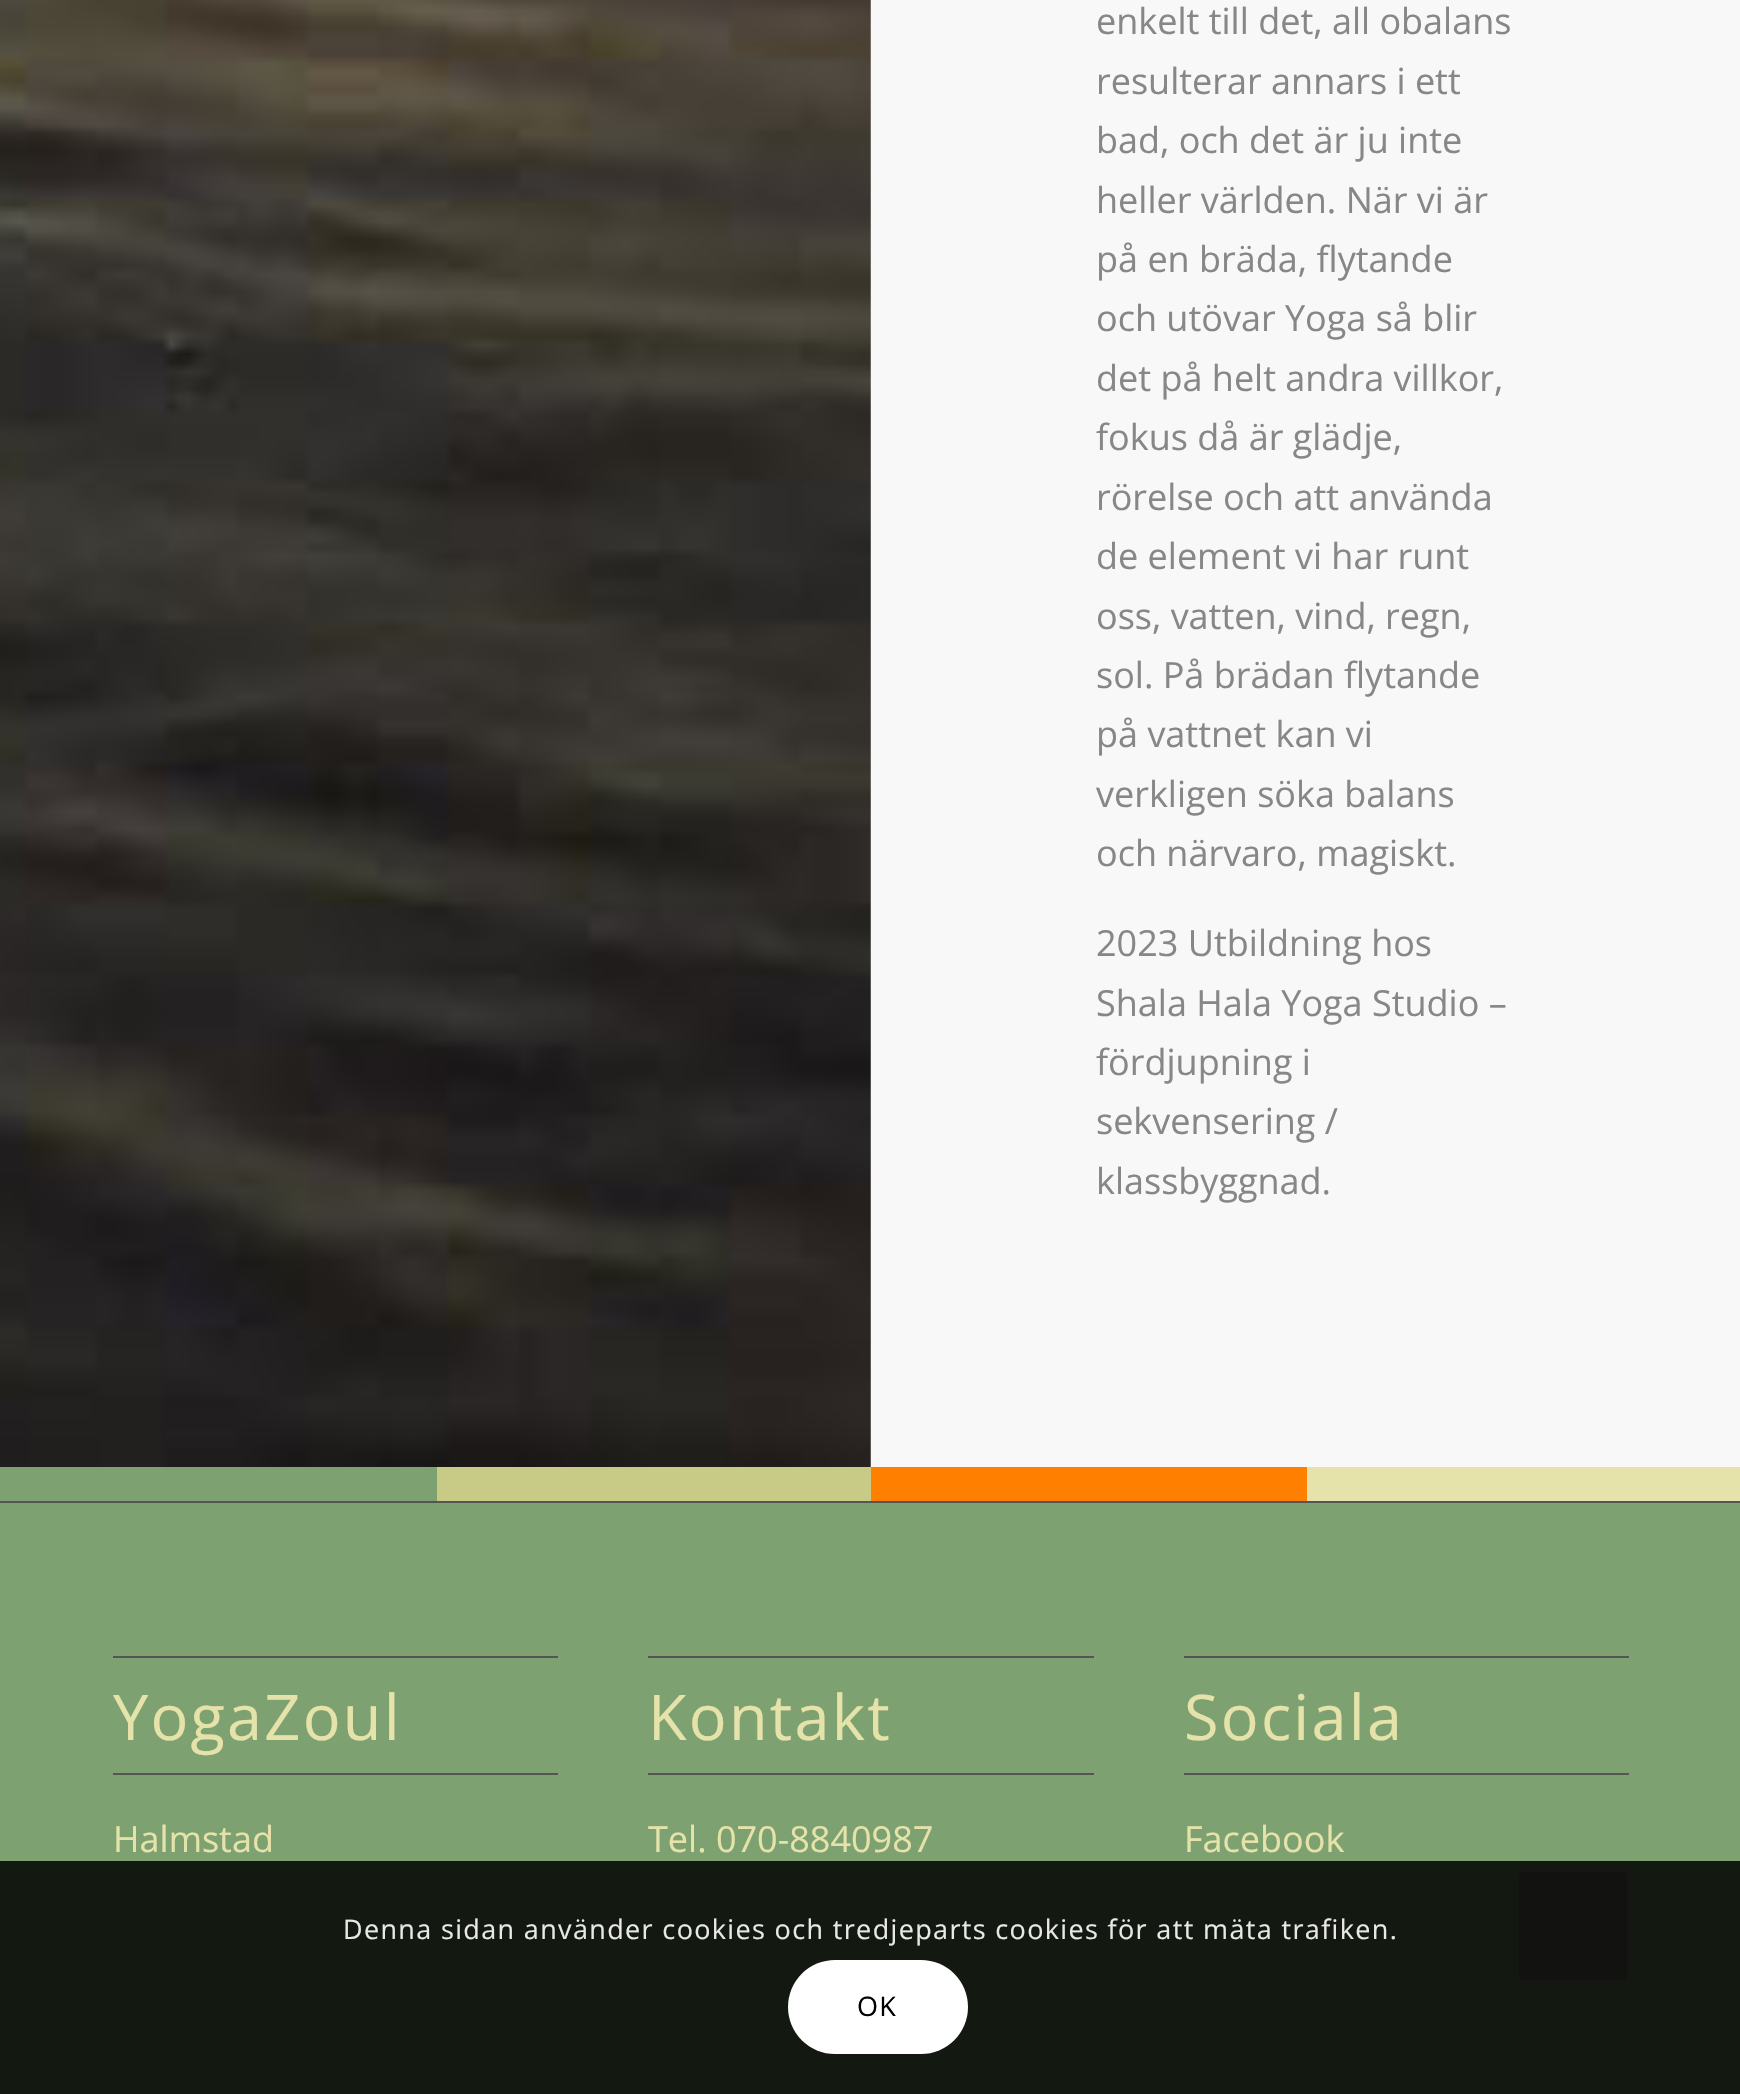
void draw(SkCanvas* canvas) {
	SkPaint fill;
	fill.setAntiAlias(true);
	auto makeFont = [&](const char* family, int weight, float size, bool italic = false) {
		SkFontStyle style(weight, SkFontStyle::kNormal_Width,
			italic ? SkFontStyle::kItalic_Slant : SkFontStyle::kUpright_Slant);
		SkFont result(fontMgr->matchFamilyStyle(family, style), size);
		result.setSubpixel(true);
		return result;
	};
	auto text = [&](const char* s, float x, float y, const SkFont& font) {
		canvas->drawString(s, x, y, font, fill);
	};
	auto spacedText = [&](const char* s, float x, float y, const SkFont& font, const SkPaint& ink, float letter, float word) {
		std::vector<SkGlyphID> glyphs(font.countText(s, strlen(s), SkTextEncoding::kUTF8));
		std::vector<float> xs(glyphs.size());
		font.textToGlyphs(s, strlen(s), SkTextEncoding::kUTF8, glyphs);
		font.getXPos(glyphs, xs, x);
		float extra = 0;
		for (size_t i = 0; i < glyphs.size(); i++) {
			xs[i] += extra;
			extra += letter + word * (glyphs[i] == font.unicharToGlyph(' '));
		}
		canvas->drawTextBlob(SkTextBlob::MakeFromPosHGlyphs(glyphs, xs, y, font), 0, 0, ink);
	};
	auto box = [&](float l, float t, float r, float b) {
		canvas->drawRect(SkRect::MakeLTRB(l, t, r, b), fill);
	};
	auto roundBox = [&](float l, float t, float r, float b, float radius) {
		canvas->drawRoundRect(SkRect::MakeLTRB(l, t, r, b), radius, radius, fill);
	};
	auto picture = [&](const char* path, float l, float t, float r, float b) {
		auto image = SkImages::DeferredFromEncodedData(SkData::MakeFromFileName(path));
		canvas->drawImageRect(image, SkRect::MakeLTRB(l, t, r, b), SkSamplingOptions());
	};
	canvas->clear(0xFFF8F8F8);
	picture("image0.png", 0, 0, 871, 1467);
	fill.setColor(0xFF7EA172);
	box(0, 1467, 437, 1501);
	fill.setColor(0xFFC7CB85);
	box(437, 1467, 871, 1501);
	fill.setColor(0xFFFF8000);
	box(871, 1467, 1307, 1501);
	fill.setColor(0xFFE5E3A9);
	box(1307, 1467, 1740, 1501);
	fill.setColor(0xFF7EA172);
	box(0, 1503, 1740, 1861);
	fill.setColor(0xFF131811);
	box(0, 1861, 1740, 2094);
	fill.setColor(0xFF555555);
	box(0, 1501, 1740, 1503);
	box(113, 1656, 558, 1658);
	box(113, 1773, 558, 1775);
	box(648, 1656, 1094, 1658);
	box(648, 1773, 1094, 1775);
	box(1184, 1656, 1629, 1658);
	box(1184, 1773, 1629, 1775);
	fill.setColor(0xFFFFFFFF);
	roundBox(788, 1960, 968, 2054, 47);
	fill.setColor(0xFF121311);
	canvas->drawRoundRect(SkRect::MakeLTRB(1518, 1871, 1628, 1981), 4, 4, fill);
	fill.setStyle(SkPaint::kStroke_Style);
	fill.setStrokeWidth(2);
	fill.setColor(0xFF151715);
	canvas->drawRoundRect(SkRect::MakeLTRB(1518, 1871, 1628, 1981), 4, 4, fill);
	auto font1 = makeFont("Open Sans", 400, 36);
	fill.setStyle(SkPaint::kFill_Style);
	fill.setColor(0xFF878787);
	text("enkelt till det, all obalans", 1096, 34, font1);
	text("resulterar annars i ett", 1096, 94, font1);
	text("bad, och det är ju inte", 1096, 153, font1);
	text("heller världen. När vi är", 1096, 213, font1);
	text("på en bräda, flytande", 1096, 272, font1);
	text("och utövar Yoga så blir", 1096, 331, font1);
	text("det på helt andra villkor,", 1096, 391, font1);
	text("fokus då är glädje,", 1096, 450, font1);
	text("rörelse och att använda", 1096, 510, font1);
	text("de element vi har runt", 1096, 569, font1);
	text("oss, vatten, vind, regn,", 1096, 629, font1);
	text("sol. På brädan flytande", 1096, 688, font1);
	text("på vattnet kan vi", 1096, 747, font1);
	text("verkligen söka balans", 1096, 807, font1);
	text("och närvaro, magiskt.", 1096, 866, font1);
	text("2023 Utbildning hos", 1096, 956, font1);
	text("Shala Hala Yoga Studio –", 1096, 1016, font1);
	text("fördjupning i", 1096, 1075, font1);
	text("sekvensering /", 1096, 1134, font1);
	text("klassbyggnad.", 1096, 1194, font1);
	auto font2 = makeFont("Open Sans", 400, 63);
	fill.setColor(0xFFE5E3A9);
	spacedText("YogaZoul", 113, 1740, font2, fill, 2.25f, 0);
	text("Halmstad", 113, 1852, font1);
	spacedText("Kontakt", 648, 1740, font2, fill, 2.25f, 0);
	text("Tel. 070-8840987", 648, 1852, font1);
	spacedText("Sociala", 1184, 1740, font2, fill, 2.25f, 0);
	text("Facebook", 1184, 1852, font1);
	auto font3 = makeFont("Open Sans", 400, 27);
	fill.setColor(0xFFE7E8E7);
	spacedText("Denna sidan använder cookies och tredjeparts cookies för att mäta trafiken.", 343, 1939, font3, fill, 1.35f, 0);
	fill.setColor(0xFF000000);
	spacedText("OK", 857, 2016, font3, fill, 1.35f, 0);
}
